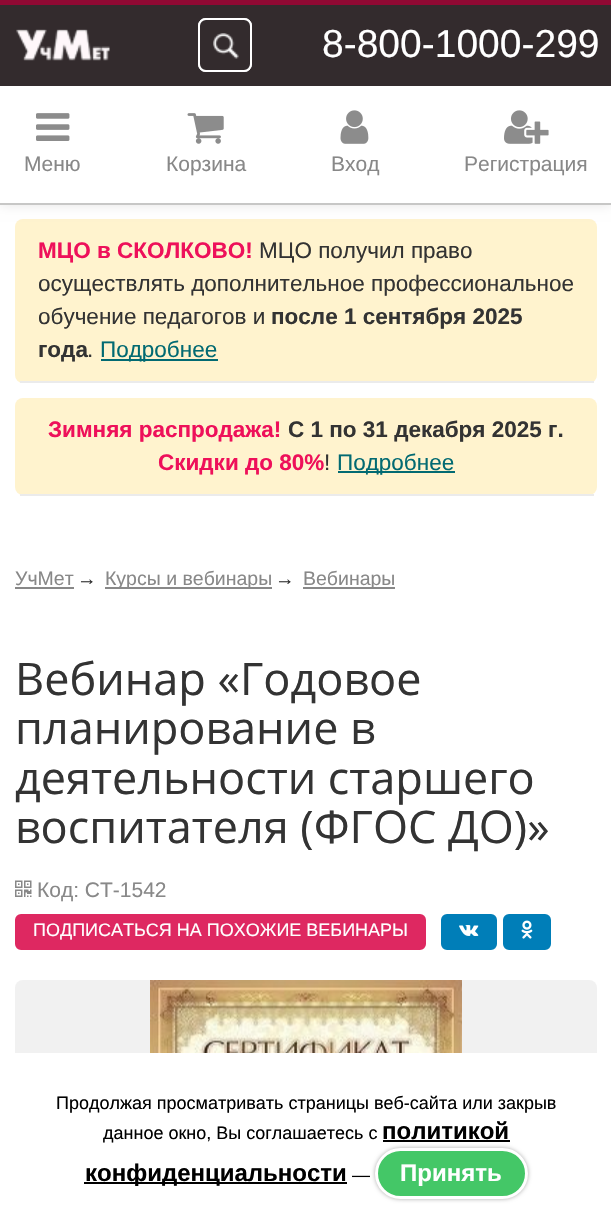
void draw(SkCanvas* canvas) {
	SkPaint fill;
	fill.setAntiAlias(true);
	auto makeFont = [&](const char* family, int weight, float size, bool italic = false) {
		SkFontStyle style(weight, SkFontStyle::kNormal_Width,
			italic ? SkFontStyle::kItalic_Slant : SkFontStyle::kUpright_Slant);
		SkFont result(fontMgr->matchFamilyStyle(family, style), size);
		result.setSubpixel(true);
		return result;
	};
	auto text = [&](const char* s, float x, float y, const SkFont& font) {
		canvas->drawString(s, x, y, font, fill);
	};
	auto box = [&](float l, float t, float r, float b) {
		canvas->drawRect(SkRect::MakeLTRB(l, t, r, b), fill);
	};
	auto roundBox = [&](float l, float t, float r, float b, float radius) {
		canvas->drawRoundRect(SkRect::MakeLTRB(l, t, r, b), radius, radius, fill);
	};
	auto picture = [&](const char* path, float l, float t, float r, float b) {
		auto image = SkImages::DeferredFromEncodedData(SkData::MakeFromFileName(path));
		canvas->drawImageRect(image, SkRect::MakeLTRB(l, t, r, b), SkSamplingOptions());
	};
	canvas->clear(0xFFFFFFFF);
	fill.setColor(0xFFFFF3CE);
	roundBox(15, 219, 597, 383, 8);
	fill.setColor(0xFFE2E1E1);
	fill.setMaskFilter(SkMaskFilter::MakeBlur(kNormal_SkBlurStyle, 6));
	canvas->drawRect(SkRect::MakeLTRB(0, 0, 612, 204), fill);
	fill.setMaskFilter(nullptr);
	fill.setColor(0xFF332B2D);
	box(0, 5, 611, 86);
	fill.setColor(0xFF900933);
	box(0, 0, 611, 5);
	fill.setColor(0xFFC7C7C6);
	box(0, 203, 611, 205);
	picture("image0.png", 16, 29, 110, 61);
	fill.setStyle(SkPaint::kStroke_Style);
	fill.setStrokeWidth(2);
	fill.setColor(0xFFFFFFFF);
	canvas->drawRoundRect(SkRect::MakeLTRB(199, 19, 251, 71), 7, 7, fill);
	fill.setStyle(SkPaint::kFill_Style);
	fill.setColor(0xFF332B2D);
	canvas->drawRoundRect(SkRect::MakeLTRB(199, 19, 251, 71), 7, 7, fill);
	fill.setStyle(SkPaint::kStroke_Style);
	fill.setColor(0xFFFFFFFF);
	canvas->drawRoundRect(SkRect::MakeLTRB(199, 19, 251, 71), 7, 7, fill);
	picture("image1.png", 213, 33, 239, 59);
	fill.setStyle(SkPaint::kFill_Style);
	box(0, 86, 611, 203);
	picture("image2.png", 36, 113, 70, 141);
	picture("image3.png", 187, 113, 224, 144);
	picture("image4.png", 340, 110, 369, 144);
	picture("image5.png", 504, 110, 549, 144);
	fill.setColor(0xFFEBEBEB);
	box(20, 381, 594, 383);
	fill.setColor(0xFF026A72);
	box(101, 359, 218, 361);
	fill.setColor(0xFFFFF3CE);
	roundBox(15, 398, 597, 495, 8);
	fill.setColor(0xFFEBEBEB);
	box(20, 494, 594, 496);
	fill.setColor(0xFF026A72);
	box(338, 471, 455, 473);
	fill.setColor(0xFF888888);
	box(15, 587, 74, 589);
	box(105, 587, 272, 589);
	box(303, 587, 395, 589);
	picture("image6.png", 15, 880, 32, 897);
	fill.setColor(0xFFDE2861);
	canvas->drawRoundRect(SkRect::MakeLTRB(16, 915, 425, 949), 5, 5, fill);
	fill.setStyle(SkPaint::kStroke_Style);
	canvas->drawRoundRect(SkRect::MakeLTRB(16, 915, 425, 949), 5, 5, fill);
	fill.setStyle(SkPaint::kFill_Style);
	fill.setColor(0xFF007EB8);
	canvas->drawRoundRect(SkRect::MakeLTRB(442, 915, 496, 949), 5, 5, fill);
	fill.setStyle(SkPaint::kStroke_Style);
	canvas->drawRoundRect(SkRect::MakeLTRB(442, 915, 496, 949), 5, 5, fill);
	picture("image7.png", 459, 925, 479, 936);
	fill.setStyle(SkPaint::kFill_Style);
	canvas->drawRoundRect(SkRect::MakeLTRB(504, 915, 550, 949), 5, 5, fill);
	fill.setStyle(SkPaint::kStroke_Style);
	canvas->drawRoundRect(SkRect::MakeLTRB(504, 915, 550, 949), 5, 5, fill);
	picture("image8.png", 521, 920, 533, 939);
	fill.setStyle(SkPaint::kFill_Style);
	fill.setColor(0xFFF1F1F1);
	roundBox(15, 980, 597, 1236, 8);
	picture("image9.png", 150, 980, 462, 1053);
	fill.setColor(0xFFFFFFFF);
	box(15, 1053, 597, 1228);
	fill.setColor(0xFF000000);
	box(383, 1140, 510, 1142);
	box(84, 1182, 347, 1184);
	fill.setColor(0xFFADADAD);
	fill.setMaskFilter(SkMaskFilter::MakeBlur(kNormal_SkBlurStyle, 2));
	canvas->drawRoundRect(SkRect::MakeLTRB(375, 1148, 528, 1199), 25.5f, 25.5f, fill);
	fill.setMaskFilter(nullptr);
	fill.setColor(0xFF44C767);
	canvas->drawRoundRect(SkRect::MakeLTRB(376.5f, 1149.5f, 526.5f, 1197.5f), 24, 24, fill);
	fill.setStyle(SkPaint::kStroke_Style);
	fill.setStrokeWidth(3);
	fill.setColor(0xFFFFFFFF);
	canvas->drawRoundRect(SkRect::MakeLTRB(376.5f, 1149.5f, 526.5f, 1197.5f), 24, 24, fill);
	auto font1 = makeFont("Liberation Sans", 400, 39);
	fill.setStyle(SkPaint::kFill_Style);
	text("8-800-1000-299", 322, 57, font1);
	auto font2 = makeFont("Liberation Sans", 400, 21);
	fill.setColor(0xFF888888);
	text("Меню", 24, 171, font2);
	text("Корзина", 166, 171, font2);
	text("Вход", 331, 171, font2);
	text("Регистрация", 464, 171, font2);
	auto font3 = makeFont("Liberation Sans", 700, 22.5f);
	fill.setColor(0xFFEE105A);
	text("МЦО в СКОЛКОВО!", 38, 258, font3);
	auto font4 = makeFont("Liberation Sans", 400, 22.5f);
	fill.setColor(0xFF333333);
	text("МЦО получил право", 259, 258, font4);
	text("осуществлять дополнительное профессиональное", 38, 291, font4);
	text("обучение педагогов и", 38, 324, font4);
	text("после 1 сентября 2025", 271, 324, font3);
	text("года", 38, 357, font3);
	text(".", 87, 357, font4);
	fill.setColor(0xFF026A72);
	text("Подробнее", 100, 357, font4);
	fill.setColor(0xFFEE105A);
	text("Зимняя распродажа!", 48, 437, font3);
	fill.setColor(0xFF333333);
	text("С 1 по 31 декабря 2025 г.", 288, 437, font3);
	fill.setColor(0xFFEE105A);
	text("Скидки до 80%", 158, 470, font3);
	fill.setColor(0xFF333333);
	text("!", 324, 470, font4);
	fill.setColor(0xFF026A72);
	text("Подробнее", 337, 470, font4);
	auto font5 = makeFont("Liberation Sans", 400, 19.5f);
	fill.setColor(0xFF888888);
	text("УчМет", 15, 585, font5);
	fill.setColor(0xFF333333);
	text("→", 77, 585, font5);
	fill.setColor(0xFF888888);
	text("Курсы и вебинары", 105, 585, font5);
	fill.setColor(0xFF333333);
	text("→", 275, 585, font5);
	fill.setColor(0xFF888888);
	text("Вебинары", 303, 585, font5);
	auto font6 = makeFont("Open Sans", 400, 45);
	fill.setColor(0xFF333333);
	text("Вебинар «Годовое", 15, 695, font6);
	text("планирование в", 15, 744, font6);
	text("деятельности старшего", 15, 794, font6);
	text("воспитателя (ФГОС ДО)»", 15, 843, font6);
	fill.setColor(0xFF888888);
	text("Код: СТ-1542", 37, 897, font2);
	auto font7 = makeFont("Liberation Sans", 400, 18);
	fill.setColor(0xFFFFFFFF);
	text("ПОДПИСАТЬСЯ НА ПОХОЖИЕ ВЕБИНАРЫ", 33, 936, font7);
	fill.setColor(0xFF000000);
	text("Продолжая просматривать страницы веб-сайта или закрыв", 56, 1109, font7);
	text("данное окно, Вы соглашаетесь с", 103, 1139, font7);
	auto font8 = makeFont("Liberation Sans", 700, 24);
	text("политикой", 382, 1139, font8);
	text("конфиденциальности", 85, 1181, font8);
	text("—", 352, 1181, font7);
	fill.setColor(0xFFFFFFFF);
	text("Принять", 400, 1181, font8);
}
